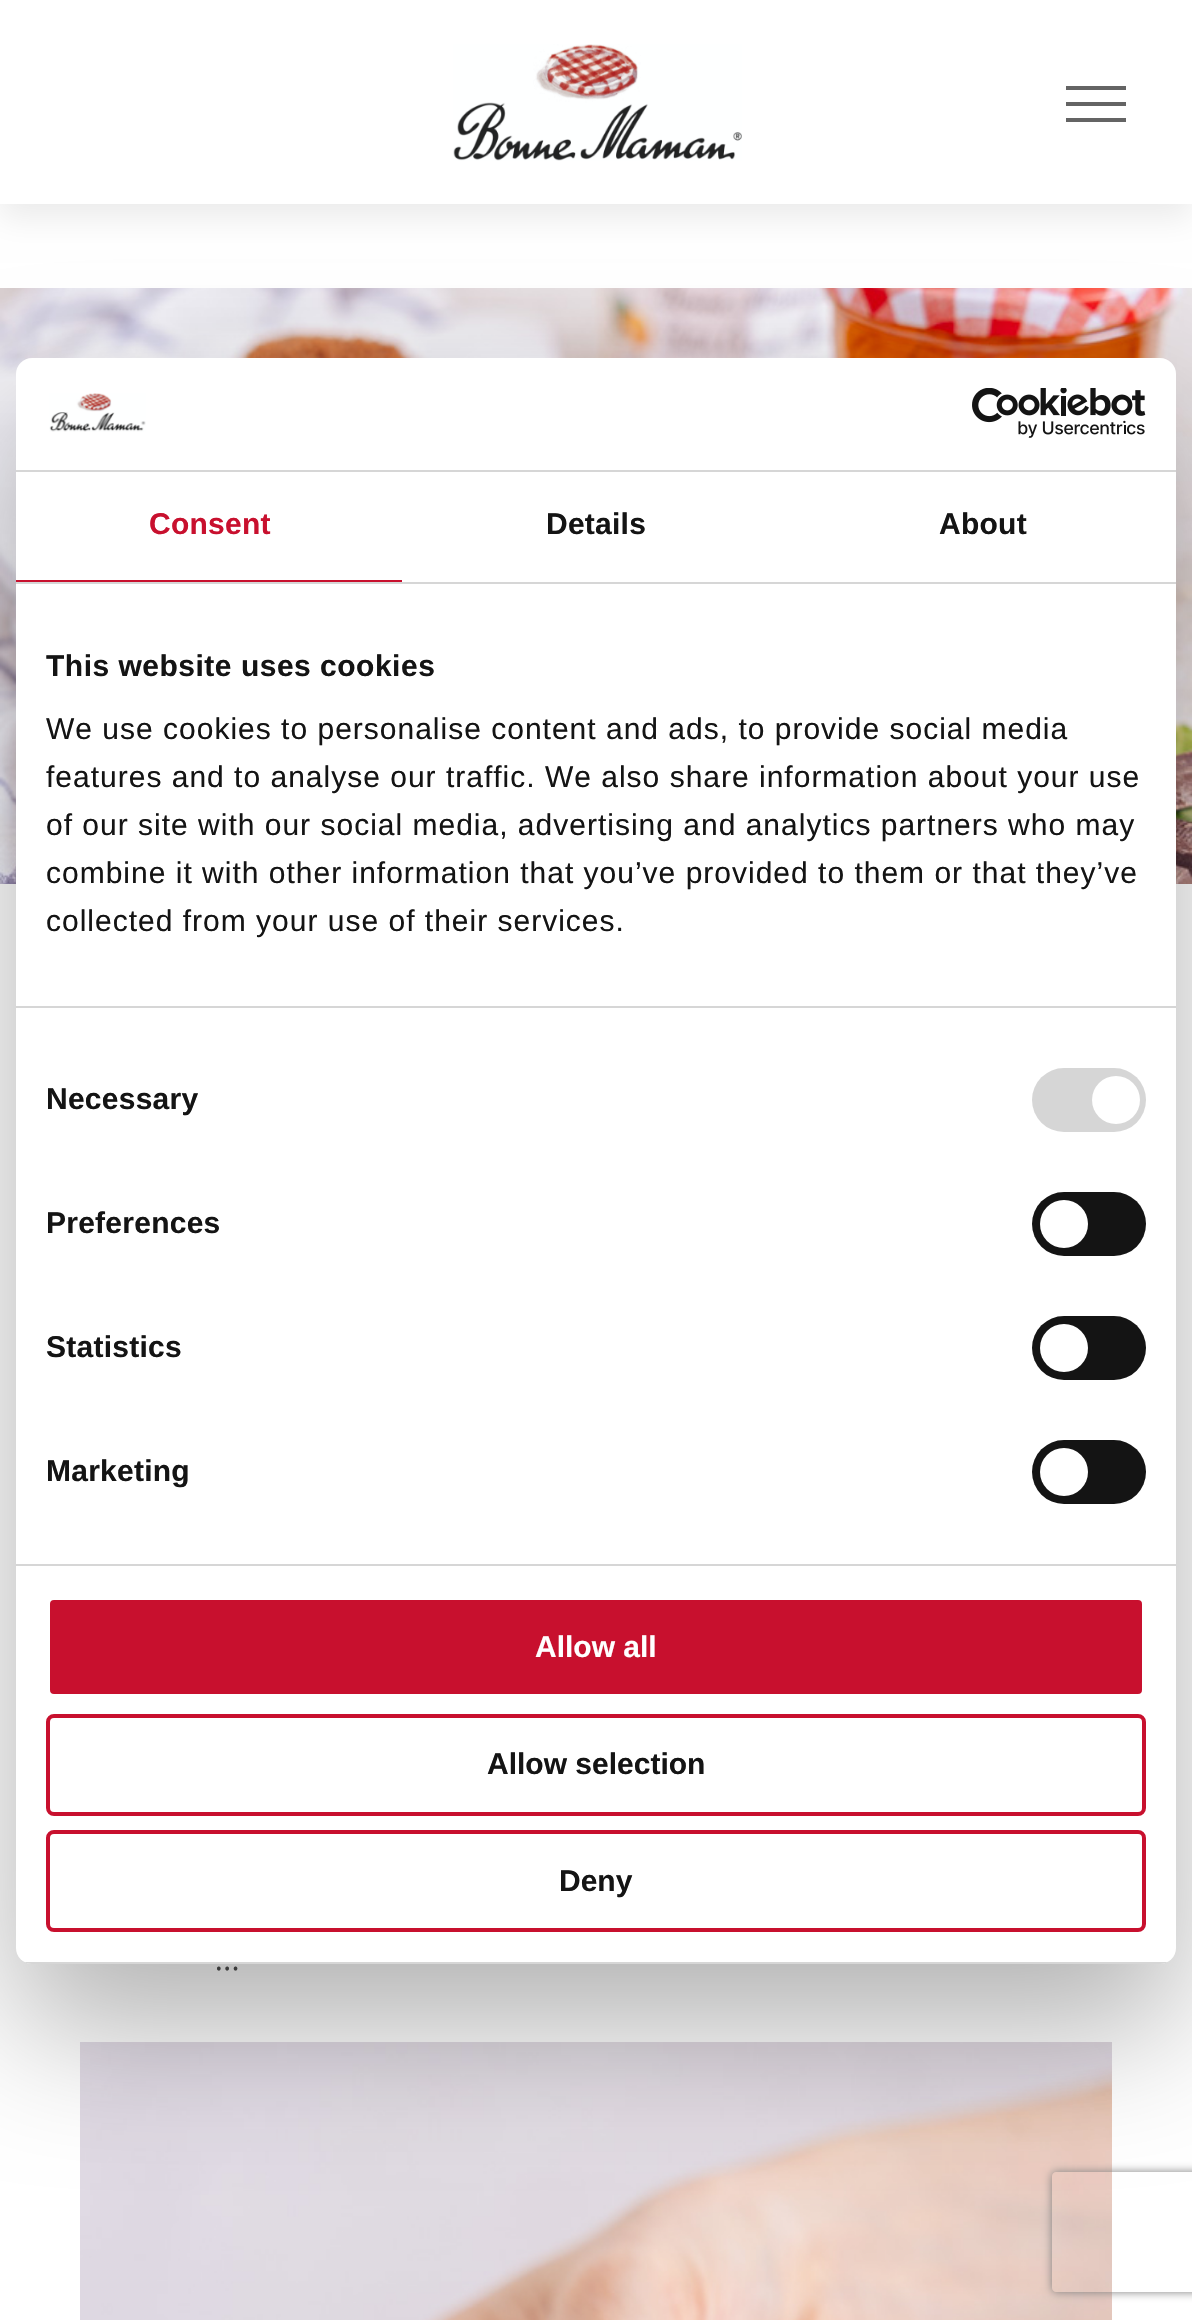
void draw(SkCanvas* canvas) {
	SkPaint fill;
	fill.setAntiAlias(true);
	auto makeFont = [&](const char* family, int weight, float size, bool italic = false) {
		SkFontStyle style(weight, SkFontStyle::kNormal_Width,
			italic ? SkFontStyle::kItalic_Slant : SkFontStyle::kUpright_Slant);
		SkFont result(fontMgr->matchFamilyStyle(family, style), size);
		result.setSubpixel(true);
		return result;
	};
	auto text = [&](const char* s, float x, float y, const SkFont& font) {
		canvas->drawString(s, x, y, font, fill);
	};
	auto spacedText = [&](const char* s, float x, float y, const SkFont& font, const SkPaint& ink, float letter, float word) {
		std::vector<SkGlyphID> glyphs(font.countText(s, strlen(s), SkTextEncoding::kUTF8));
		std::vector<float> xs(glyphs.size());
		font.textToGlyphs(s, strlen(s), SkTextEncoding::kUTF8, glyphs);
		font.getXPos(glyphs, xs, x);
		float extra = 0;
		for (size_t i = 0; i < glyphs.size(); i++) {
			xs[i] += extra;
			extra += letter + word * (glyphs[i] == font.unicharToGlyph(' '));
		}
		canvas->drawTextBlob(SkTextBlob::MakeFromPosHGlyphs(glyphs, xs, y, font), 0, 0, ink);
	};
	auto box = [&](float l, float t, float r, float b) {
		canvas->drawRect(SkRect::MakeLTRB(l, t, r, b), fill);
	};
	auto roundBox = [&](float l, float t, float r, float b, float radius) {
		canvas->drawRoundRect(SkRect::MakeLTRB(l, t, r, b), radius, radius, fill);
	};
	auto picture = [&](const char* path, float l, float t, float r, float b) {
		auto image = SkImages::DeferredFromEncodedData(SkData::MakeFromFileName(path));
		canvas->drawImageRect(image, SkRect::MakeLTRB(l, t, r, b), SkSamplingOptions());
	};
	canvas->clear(0xFFFFFFFF);
	fill.setColor(0x14000000);
	fill.setMaskFilter(SkMaskFilter::MakeBlur(kNormal_SkBlurStyle, 15));
	canvas->drawRect(SkRect::MakeLTRB(0, 14, 1192, 218), fill);
	fill.setMaskFilter(nullptr);
	fill.setColor(0xFFFFFFFF);
	box(0, 0, 1192, 204);
	picture("image0.png", 453, 44, 742, 161);
	fill.setColor(0xFF646464);
	box(1066, 102, 1126, 106);
	box(1066, 86, 1126, 90);
	box(1066, 118, 1126, 122);
	picture("image3.png", 0, 288, 1192, 884);
	picture("image4.png", 80, 2042, 1112, 2320);
	fill.setColor(0x4D000000);
	fill.setMaskFilter(SkMaskFilter::MakeBlur(kNormal_SkBlurStyle, 68));
	canvas->drawRoundRect(SkRect::MakeLTRB(16, 422, 1176, 2028), 16, 16, fill);
	fill.setMaskFilter(nullptr);
	fill.setColor(0xFFFFFFFF);
	roundBox(16, 358, 1176, 1964, 16);
	fill.setColor(0xFFD6D6D6);
	box(16, 470, 1176, 472);
	picture("image1.png", 49, 393, 146, 432);
	picture("image2.png", 972, 388, 1146, 438);
	box(16, 582, 1176, 584);
	fill.setColor(0xFFC8102E);
	box(16, 580, 402, 582);
	fill.setColor(0xFFD6D6D6);
	box(16, 1006, 1176, 1008);
	box(16, 1564, 1176, 1566);
	roundBox(1032, 1068, 1146, 1132, 32);
	fill.setColor(0xFFFFFFFF);
	canvas->drawCircle(1116, 1100, 24, fill);
	fill.setColor(0xFF141414);
	roundBox(1032, 1192, 1146, 1256, 32);
	fill.setColor(0xFFFFFFFF);
	canvas->drawCircle(1064, 1224, 24, fill);
	fill.setColor(0xFF141414);
	roundBox(1032, 1316, 1146, 1380, 32);
	fill.setColor(0xFFFFFFFF);
	canvas->drawCircle(1064, 1348, 24, fill);
	fill.setColor(0xFF141414);
	roundBox(1032, 1440, 1146, 1504, 32);
	fill.setColor(0xFFFFFFFF);
	canvas->drawCircle(1064, 1472, 24, fill);
	canvas->save();
	canvas->clipPath(SkPathBuilder().moveTo(32, 358).lineTo(1160, 358).cubicTo(1169, 358, 1176, 365, 1176, 374).lineTo(1176, 1948).cubicTo(1176, 1957, 1169, 1964, 1160, 1964).lineTo(32, 1964).cubicTo(23, 1964, 16, 1957, 16, 1948).lineTo(16, 374).cubicTo(16, 365, 23, 358, 32, 358).close().detach(), true);
	fill.setColor(0xFFD6D6D6);
	box(16, 1962, 1176, 1964);
	canvas->restore();
	fill.setColor(0xFFC8102E);
	canvas->drawRoundRect(SkRect::MakeLTRB(48, 1598, 1144, 1696), 6, 6, fill);
	fill.setStyle(SkPaint::kStroke_Style);
	fill.setStrokeWidth(4);
	fill.setColor(0xFFFFFFFF);
	canvas->drawRoundRect(SkRect::MakeLTRB(48, 1598, 1144, 1696), 6, 6, fill);
	fill.setColor(0xFFC8102E);
	canvas->drawRoundRect(SkRect::MakeLTRB(48, 1716, 1144, 1814), 6, 6, fill);
	canvas->drawRoundRect(SkRect::MakeLTRB(48, 1832, 1144, 1930), 6, 6, fill);
	canvas->save();
	canvas->clipPath(SkPathBuilder(SkPathFillType::kEvenOdd).moveTo(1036, 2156).lineTo(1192, 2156).lineTo(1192, 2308).lineTo(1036, 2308).close().moveTo(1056, 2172).lineTo(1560, 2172).cubicTo(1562, 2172, 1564, 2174, 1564, 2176).lineTo(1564, 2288).cubicTo(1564, 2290, 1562, 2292, 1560, 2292).lineTo(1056, 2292).cubicTo(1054, 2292, 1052, 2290, 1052, 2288).lineTo(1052, 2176).cubicTo(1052, 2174, 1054, 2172, 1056, 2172).close().detach(), true);
	fill.setStyle(SkPaint::kFill_Style);
	fill.setColor(0xFF808080);
	fill.setMaskFilter(SkMaskFilter::MakeBlur(kNormal_SkBlurStyle, 5));
	canvas->drawRoundRect(SkRect::MakeLTRB(1052, 2172, 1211, 2292), 4, 4, fill);
	fill.setMaskFilter(nullptr);
	canvas->restore();
	auto font1 = makeFont("Liberation Sans", 700, 30);
	fill.setColor(0xFFC8102E);
	spacedText("Consent", 149, 534, font1, fill, 0.25f, 0);
	fill.setColor(0xFF141414);
	spacedText("Details", 546, 534, font1, fill, 0.25f, 0);
	spacedText("About", 939, 534, font1, fill, 0.25f, 0);
	spacedText("This website uses cookies", 46, 676, font1, fill, 0.5f, 0);
	auto font2 = makeFont("Liberation Sans", 400, 30);
	spacedText("We use cookies to personalise content and ads, to provide social media", 46, 739, font2, fill, 1, 0);
	spacedText("features and to analyse our traffic. We also share information about your use", 46, 787, font2, fill, 1, 0);
	spacedText("of our site with our social media, advertising and analytics partners who may", 46, 835, font2, fill, 1, 0);
	spacedText("combine it with other information that you’ve provided to them or that they’ve", 46, 883, font2, fill, 1, 0);
	spacedText("collected from your use of their services.", 46, 931, font2, fill, 1, 0);
	spacedText("Necessary", 46, 1109, font1, fill, 0.25f, 0);
	spacedText("Preferences", 46, 1233, font1, fill, 0.25f, 0);
	spacedText("Statistics", 46, 1357, font1, fill, 0.25f, 0);
	spacedText("Marketing", 46, 1481, font1, fill, 0.25f, 0);
	fill.setColor(0xFFFFFFFF);
	text("Allow all", 535, 1657, font1);
	fill.setColor(0xFF141414);
	text("Allow selection", 487, 1774, font1);
	text("Deny", 559, 1891, font1);
	auto font3 = makeFont("Lora", 400, 31);
	fill.setColor(0xFF3B3B3B);
	text("…", 215, 1970, font3);
}
